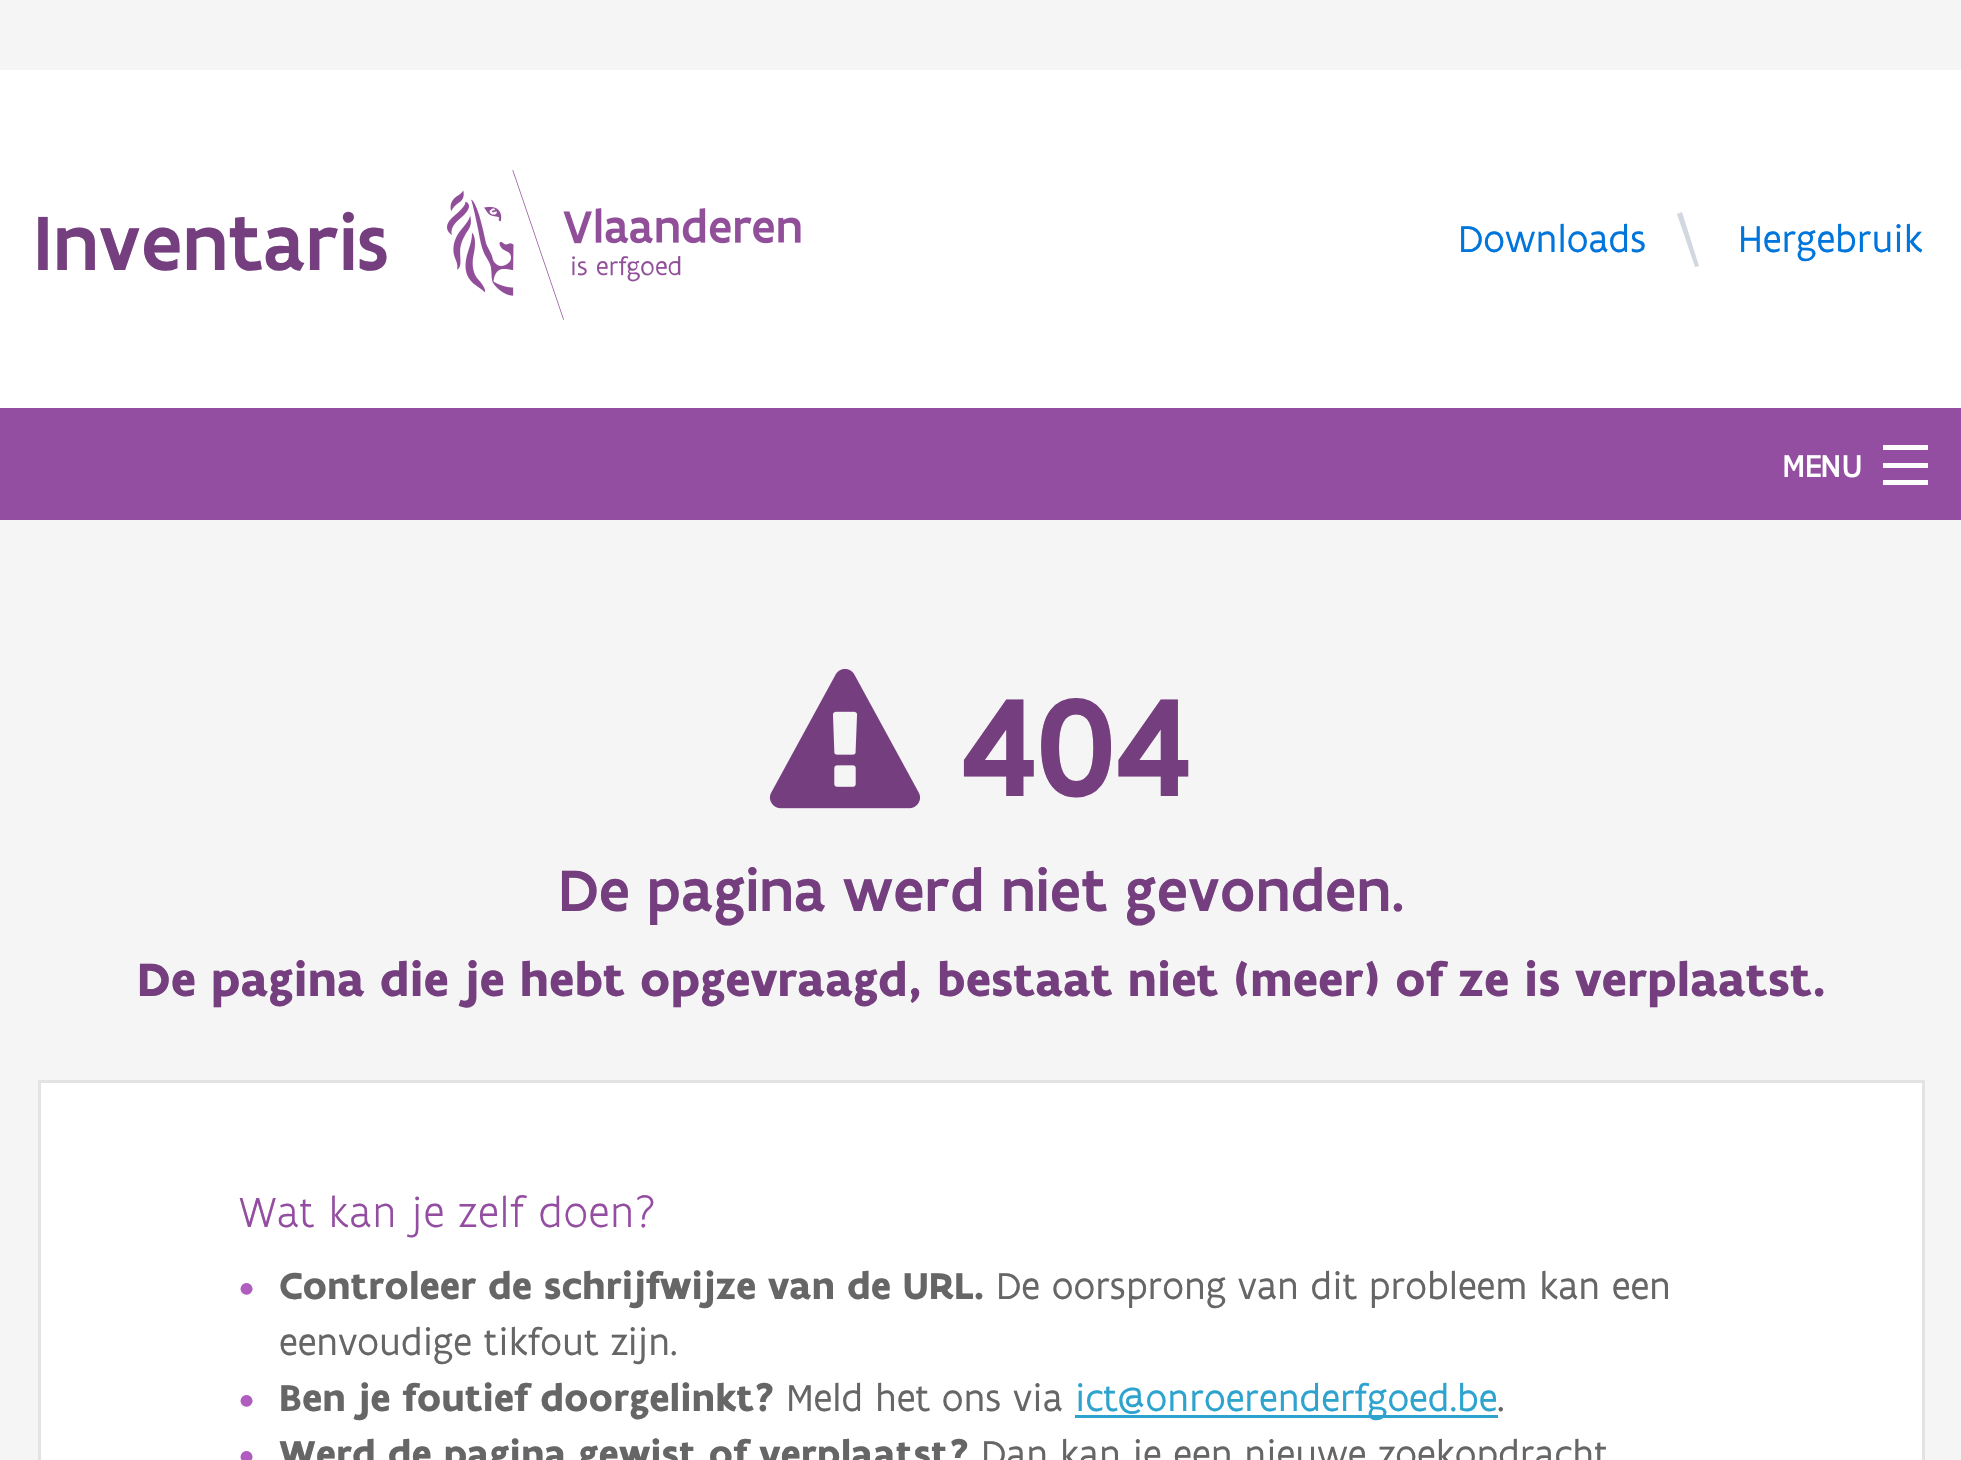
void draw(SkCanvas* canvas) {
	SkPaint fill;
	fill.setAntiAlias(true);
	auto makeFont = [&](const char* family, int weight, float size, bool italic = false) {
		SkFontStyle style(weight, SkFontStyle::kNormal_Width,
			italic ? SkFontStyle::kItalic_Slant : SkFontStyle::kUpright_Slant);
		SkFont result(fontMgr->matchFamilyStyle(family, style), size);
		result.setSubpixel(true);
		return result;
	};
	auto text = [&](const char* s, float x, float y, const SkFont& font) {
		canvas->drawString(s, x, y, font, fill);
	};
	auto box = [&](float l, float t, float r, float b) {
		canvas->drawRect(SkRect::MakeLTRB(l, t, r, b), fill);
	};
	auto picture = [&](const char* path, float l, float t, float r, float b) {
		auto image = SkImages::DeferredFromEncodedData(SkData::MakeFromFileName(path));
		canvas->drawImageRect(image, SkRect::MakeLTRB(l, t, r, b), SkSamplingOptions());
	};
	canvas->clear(0xFFF5F5F5);
	fill.setColor(0xFFFFFFFF);
	box(0, 70, 1961, 408);
	picture("image0.png", 447, 170, 801, 320);
	fill.setColor(0xFFD1D8DF);
	canvas->drawPath(SkPathBuilder().moveTo(1677, 214).lineTo(1682, 212).lineTo(1699, 266).lineTo(1695, 267).close().detach(), fill);
	fill.setColor(0xFF944EA1);
	box(0, 408, 1961, 520);
	fill.setColor(0xFFFFFFFF);
	box(1883, 480, 1928, 485);
	box(1883, 463, 1928, 468);
	box(1883, 445, 1928, 450);
	picture("image1.png", 769, 668, 921, 809);
	canvas->drawRect(SkRect::MakeLTRB(39.5f, 1081.5f, 1923.5f, 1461.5f), fill);
	fill.setStyle(SkPaint::kStroke_Style);
	fill.setStrokeWidth(3);
	fill.setColor(0xFFE3E3E3);
	canvas->drawRect(SkRect::MakeLTRB(39.5f, 1081.5f, 1923.5f, 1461.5f), fill);
	fill.setStyle(SkPaint::kFill_Style);
	fill.setColor(0xFF2DA3CE);
	box(1075, 1415, 1498, 1418);
	auto font1 = makeFont("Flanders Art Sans", 500, 82.5f);
	fill.setColor(0xFF753F7F);
	text("Inventaris", 33, 270, font1);
	auto font2 = makeFont("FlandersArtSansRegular", 400, 40);
	fill.setColor(0xFF0075DB);
	text("Downloads", 1458, 252, font2);
	text("Hergebruik", 1738, 252, font2);
	auto font3 = makeFont("FlandersArtSansRegular", 700, 32.5f);
	fill.setColor(0xFFFFFFFF);
	text("MENU", 1782, 477, font3);
	auto font4 = makeFont("Flanders Art Sans", 500, 150);
	fill.setColor(0xFF753F7F);
	text("404", 961, 796, font4);
	auto font5 = makeFont("Flanders Art Sans", 500, 62.4f);
	text("De pagina werd niet gevonden.", 558, 911, font5);
	auto font6 = makeFont("Flanders Art Sans", 700, 50);
	text("De pagina die je hebt opgevraagd, bestaat niet (meer) of ze is verplaatst.", 137, 996, font6);
	auto font7 = makeFont("Flanders Art Sans", 300, 45.25f);
	fill.setColor(0xFF944EA1);
	text("Wat kan je zelf doen?", 239, 1227, font7);
	fill.setColor(0xFFB05DBF);
	text("•", 239, 1299, font2);
	auto font8 = makeFont("Flanders Art Sans", 700, 40);
	fill.setColor(0xFF666666);
	text("Controleer de schrijfwijze van de URL.", 279, 1299, font8);
	text("De oorsprong van dit probleem kan een", 996, 1299, font2);
	text("eenvoudige tikfout zijn.", 279, 1355, font2);
	fill.setColor(0xFFB05DBF);
	text("•", 239, 1411, font2);
	fill.setColor(0xFF666666);
	text("Ben je foutief doorgelinkt?", 279, 1411, font8);
	text("Meld het ons via", 786, 1411, font2);
	fill.setColor(0xFF2DA3CE);
	text("ict@onroerenderfgoed.be", 1075, 1411, font2);
	fill.setColor(0xFF666666);
	text(".", 1497, 1411, font2);
	fill.setColor(0xFFB05DBF);
	text("•", 239, 1467, font2);
	fill.setColor(0xFF666666);
	text("Werd de pagina gewist of verplaatst?", 279, 1467, font8);
	text("Dan kan je een nieuwe zoekopdracht", 981, 1467, font2);
}
